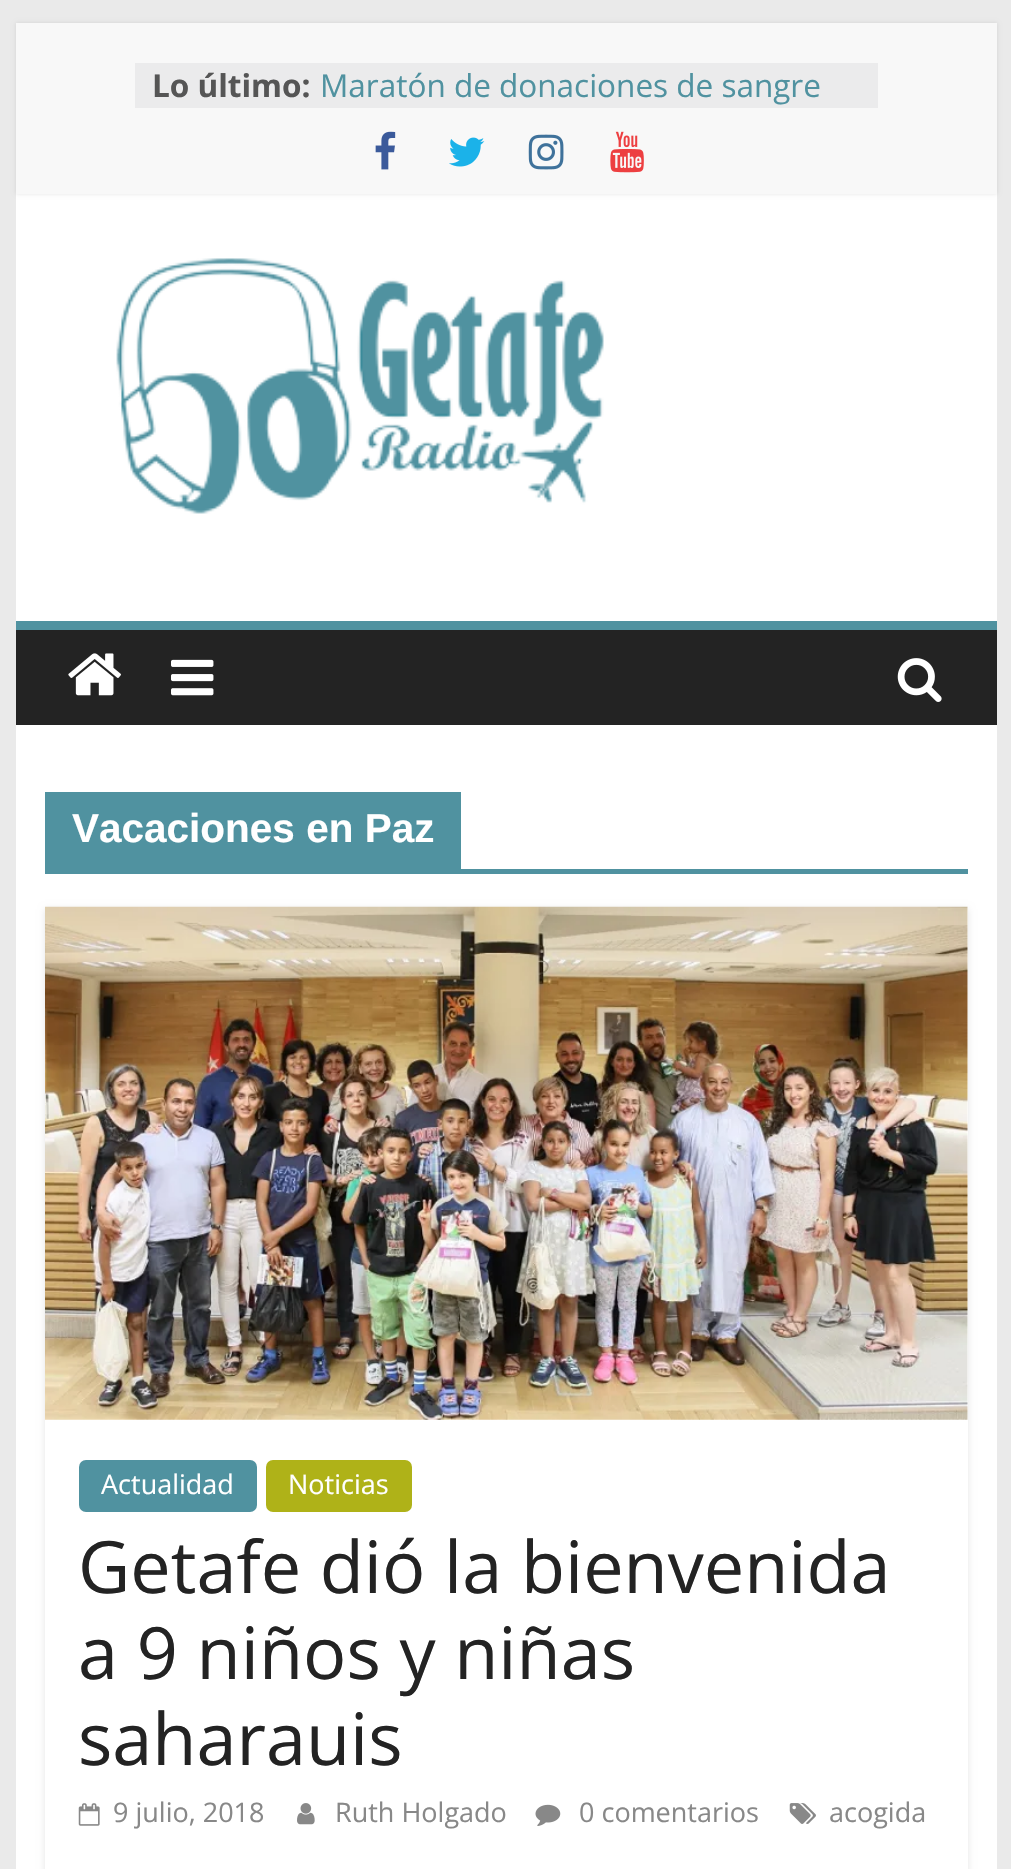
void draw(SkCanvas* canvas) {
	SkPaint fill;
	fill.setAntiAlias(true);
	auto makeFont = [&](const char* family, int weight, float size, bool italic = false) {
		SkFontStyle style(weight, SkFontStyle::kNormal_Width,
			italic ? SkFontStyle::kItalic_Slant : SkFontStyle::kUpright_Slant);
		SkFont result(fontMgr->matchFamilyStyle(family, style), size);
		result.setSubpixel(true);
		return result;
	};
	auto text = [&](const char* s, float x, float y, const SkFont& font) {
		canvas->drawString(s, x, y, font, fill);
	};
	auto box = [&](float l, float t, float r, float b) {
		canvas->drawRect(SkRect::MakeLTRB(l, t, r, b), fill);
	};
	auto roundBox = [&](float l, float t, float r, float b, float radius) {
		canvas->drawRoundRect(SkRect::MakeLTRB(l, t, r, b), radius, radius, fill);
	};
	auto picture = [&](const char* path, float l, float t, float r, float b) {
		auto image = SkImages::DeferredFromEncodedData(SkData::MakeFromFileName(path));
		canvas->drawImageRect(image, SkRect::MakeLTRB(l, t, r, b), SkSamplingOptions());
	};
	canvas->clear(0xFFEAEAEA);
	fill.setColor(0xFFFFFFFF);
	box(16, 194, 997, 621);
	fill.setColor(0x1A000000);
	fill.setMaskFilter(SkMaskFilter::MakeBlur(kNormal_SkBlurStyle, 2));
	canvas->drawRect(SkRect::MakeLTRB(16, 23, 997, 194), fill);
	fill.setMaskFilter(nullptr);
	fill.setColor(0xFFF8F8F8);
	box(16, 23, 997, 194);
	fill.setColor(0xFFEBEBEC);
	box(135, 63, 878, 108);
	picture("image0.png", 375, 131, 396, 170);
	picture("image1.png", 449, 137, 485, 167);
	picture("image2.png", 528, 134, 564, 170);
	picture("image3.png", 610, 131, 644, 173);
	picture("image4.png", 116, 258, 604, 514);
	fill.setColor(0xFF232323);
	box(16, 630, 997, 725);
	fill.setColor(0xFF5092A0);
	box(16, 621, 997, 630);
	picture("image5.png", 68, 653, 121, 696);
	picture("image6.png", 171, 659, 214, 696);
	picture("image7.png", 897, 658, 942, 702);
	fill.setColor(0xFFFFFFFF);
	box(16, 725, 997, 1869);
	fill.setColor(0xFF5092A0);
	box(45, 869, 968, 874);
	box(45, 792, 461, 869);
	canvas->save();
	canvas->clipPath(SkPathBuilder(SkPathFillType::kEvenOdd).moveTo(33, 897).lineTo(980, 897).lineTo(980, 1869).lineTo(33, 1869).close().moveTo(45, 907).lineTo(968, 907).lineTo(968, 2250).lineTo(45, 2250).close().detach(), true);
	fill.setColor(0x1A000000);
	fill.setMaskFilter(SkMaskFilter::MakeBlur(kNormal_SkBlurStyle, 3.5f));
	canvas->drawRect(SkRect::MakeLTRB(45, 909, 968, 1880), fill);
	fill.setMaskFilter(nullptr);
	canvas->restore();
	picture("image8.png", 45, 906, 968, 1420);
	fill.setColor(0xFF5092A0);
	roundBox(79, 1460, 257, 1512, 7);
	fill.setColor(0xFFAFB218);
	roundBox(266, 1460, 412, 1512, 7);
	picture("image9.png", 78, 1803, 100, 1826);
	picture("image10.png", 297, 1803, 315, 1825);
	picture("image11.png", 535, 1804, 561, 1826);
	picture("image12.png", 789, 1803, 816, 1824);
	auto font1 = makeFont("Open Sans", 700, 31.5f);
	fill.setColor(0xFF555555);
	text("Lo último:", 152, 97, font1);
	auto font2 = makeFont("Open Sans", 400, 31.5f);
	fill.setColor(0xFF5092A0);
	text("Maratón de donaciones de sangre", 320, 97, font2);
	auto font3 = makeFont("Liberation Sans", 700, 40.5f);
	fill.setColor(0xFFFFFFFF);
	text("Vacaciones en Paz", 72, 842, font3);
	auto font4 = makeFont("Open Sans", 400, 27);
	text("Actualidad", 101, 1494, font4);
	text("Noticias", 288, 1494, font4);
	auto font5 = makeFont("Open Sans", 400, 72);
	fill.setColor(0xFF232323);
	text("Getafe dió la bienvenida", 78, 1593, font5);
	text("a 9 niños y niñas", 78, 1679, font5);
	text("saharauis", 78, 1765, font5);
	fill.setColor(0xFF888888);
	text("9 julio, 2018", 113, 1822, font4);
	text("Ruth Holgado", 335, 1822, font4);
	text("0 comentarios", 579, 1822, font4);
	text("acogida", 829, 1822, font4);
}
